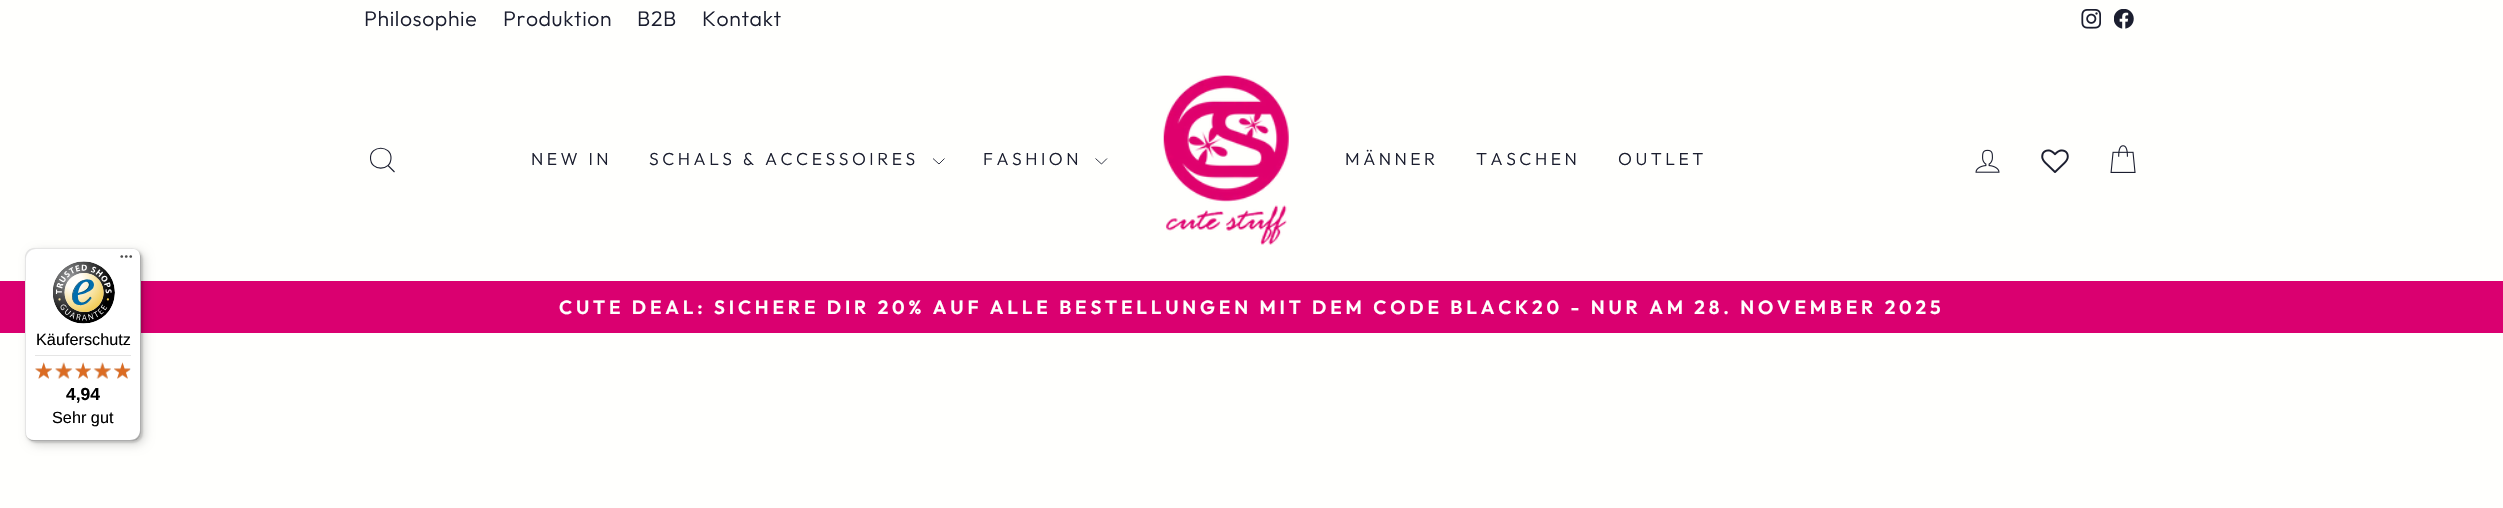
void draw(SkCanvas* canvas) {
	SkPaint fill;
	fill.setAntiAlias(true);
	auto makeFont = [&](const char* family, int weight, float size, bool italic = false) {
		SkFontStyle style(weight, SkFontStyle::kNormal_Width,
			italic ? SkFontStyle::kItalic_Slant : SkFontStyle::kUpright_Slant);
		SkFont result(fontMgr->matchFamilyStyle(family, style), size);
		result.setSubpixel(true);
		return result;
	};
	auto text = [&](const char* s, float x, float y, const SkFont& font) {
		canvas->drawString(s, x, y, font, fill);
	};
	auto spacedText = [&](const char* s, float x, float y, const SkFont& font, const SkPaint& ink, float letter, float word) {
		std::vector<SkGlyphID> glyphs(font.countText(s, strlen(s), SkTextEncoding::kUTF8));
		std::vector<float> xs(glyphs.size());
		font.textToGlyphs(s, strlen(s), SkTextEncoding::kUTF8, glyphs);
		font.getXPos(glyphs, xs, x);
		float extra = 0;
		for (size_t i = 0; i < glyphs.size(); i++) {
			xs[i] += extra;
			extra += letter + word * (glyphs[i] == font.unicharToGlyph(' '));
		}
		canvas->drawTextBlob(SkTextBlob::MakeFromPosHGlyphs(glyphs, xs, y, font), 0, 0, ink);
	};
	auto box = [&](float l, float t, float r, float b) {
		canvas->drawRect(SkRect::MakeLTRB(l, t, r, b), fill);
	};
	auto roundBox = [&](float l, float t, float r, float b, float radius) {
		canvas->drawRoundRect(SkRect::MakeLTRB(l, t, r, b), radius, radius, fill);
	};
	auto picture = [&](const char* path, float l, float t, float r, float b) {
		auto image = SkImages::DeferredFromEncodedData(SkData::MakeFromFileName(path));
		canvas->drawImageRect(image, SkRect::MakeLTRB(l, t, r, b), SkSamplingOptions());
	};
	canvas->clear(0xFFFFFFFD);
	picture("image0.png", 2081, 9, 2101, 29);
	picture("image1.png", 2114, 9, 2134, 29);
	fill.setStyle(SkPaint::kStroke_Style);
	fill.setStrokeWidth(1.1f);
	fill.setColor(0xFF1B1E2F);
	canvas->drawPath(SkPathBuilder().moveTo(391, 158).cubicTo(391, 171.5f, 370.5f, 171.5f, 370.5f, 158).cubicTo(370.5f, 145, 391, 145, 391, 158).close().moveTo(394.5f, 172).lineTo(388, 165.5f).detach(), fill);
	fill.setStrokeWidth(0.9f);
	canvas->drawPath(SkPathBuilder().moveTo(933, 158.5f).lineTo(939, 164).lineTo(944.5f, 158.5f).detach(), fill);
	canvas->drawPath(SkPathBuilder().moveTo(1095.5f, 158.5f).lineTo(1101.5f, 164).lineTo(1107, 158.5f).detach(), fill);
	picture("image2.png", 1163, 75, 1289, 245);
	picture("image3.png", 1975, 149, 2000, 173);
	picture("image4.png", 2041, 149, 2069, 173);
	picture("image5.png", 2110, 145, 2136, 173);
	fill.setStyle(SkPaint::kFill_Style);
	fill.setColor(0xFFDA0070);
	box(0, 281, 2503, 333);
	fill.setColor(0x26000000);
	fill.setMaskFilter(SkMaskFilter::MakeBlur(kNormal_SkBlurStyle, 5));
	canvas->drawRoundRect(SkRect::MakeLTRB(29, 251, 145, 445), 10, 10, fill);
	fill.setMaskFilter(nullptr);
	fill.setMaskFilter(SkMaskFilter::MakeBlur(kNormal_SkBlurStyle, 1));
	canvas->drawRoundRect(SkRect::MakeLTRB(26, 249, 143, 443), 10, 10, fill);
	fill.setMaskFilter(nullptr);
	fill.setColor(0xFFFFFFFF);
	roundBox(25, 248, 141, 441, 10);
	fill.setColor(0x1A000000);
	canvas->drawPath(SkPathBuilder().moveTo(36, 249).lineTo(132, 249).cubicTo(134, 249, 136, 249, 137, 250).cubicTo(136, 249, 133, 248, 131, 248).lineTo(35, 248).cubicTo(29, 248, 25, 252, 25, 258).lineTo(25, 431).cubicTo(25, 434, 26, 437, 28, 439).cubicTo(27, 437, 26, 435, 26, 432).lineTo(26, 259).cubicTo(26, 253, 31, 249, 36, 249).close().detach(), fill);
	fill.setColor(0x33000000);
	canvas->drawPath(SkPathBuilder().moveTo(29, 439).cubicTo(30, 440, 33, 441, 35, 441).lineTo(131, 441).cubicTo(137, 441, 141, 437, 141, 431).lineTo(141, 258).cubicTo(141, 256, 140, 254, 139, 252).lineTo(140, 256).lineTo(140, 430).cubicTo(140, 436, 136, 440, 130, 440).lineTo(34, 440).cubicTo(32, 440, 30, 440, 29, 439).close().detach(), fill);
	fill.setColor(0x33323232);
	canvas->drawPath(SkPathBuilder().moveTo(27, 437).cubicTo(29, 440, 32, 441, 35, 441).lineTo(131, 441).cubicTo(137, 441, 141, 437, 141, 431).lineTo(141, 258).cubicTo(141, 256, 140, 253, 139, 252).cubicTo(140, 253, 140, 255, 140, 257).lineTo(140, 430).cubicTo(140, 436, 136, 440, 130, 440).lineTo(34, 440).cubicTo(32, 440, 29, 439, 27, 437).close().detach(), fill);
	picture("image6.png", 120, 255, 133, 258);
	fill.setColor(0x4DFFFFFF);
	canvas->drawPath(SkPathBuilder().moveTo(131, 441).cubicTo(136.5f, 441, 141, 436.5f, 141, 431).cubicTo(141, 436, 136, 441, 131, 441).close().detach(), fill);
	picture("image7.png", 53, 261, 115, 324);
	fill.setColor(0xFFE5E5E5);
	box(35, 355, 131, 356);
	picture("image8.png", 35, 363, 52, 379);
	picture("image9.png", 55, 362, 72, 379);
	picture("image10.png", 75, 363, 91, 379);
	picture("image11.png", 94, 362, 111, 379);
	picture("image12.png", 114, 363, 131, 379);
	picture("image13.png", 35, 362, 52, 379);
	picture("image14.png", 55, 362, 73, 379);
	picture("image15.png", 75, 362, 91, 379);
	picture("image16.png", 93, 362, 111, 379);
	picture("image17.png", 114, 362, 130, 379);
	auto font1 = makeFont("Outfit", 300, 21.25f);
	fill.setColor(0xFF1B1E2F);
	spacedText("Philosophie", 364, 26, font1, fill, 0.6f, 0);
	spacedText("Produktion", 503, 26, font1, fill, 0.6f, 0);
	spacedText("B2B", 637, 26, font1, fill, 0.6f, 0);
	spacedText("Kontakt", 702, 26, font1, fill, 0.6f, 0);
	auto font2 = makeFont("Outfit", 300, 17.5f);
	spacedText("NEW IN", 531, 165, font2, fill, 3.5f, 0);
	spacedText("SCHALS & ACCESSOIRES", 649, 165, font2, fill, 3.5f, 0);
	spacedText("FASHION", 983, 165, font2, fill, 3.5f, 0);
	spacedText("MÄNNER", 1345, 165, font2, fill, 3.5f, 0);
	spacedText("TASCHEN", 1476, 165, font2, fill, 3.5f, 0);
	spacedText("OUTLET", 1618, 165, font2, fill, 3.5f, 0);
	auto font3 = makeFont("Outfit", 600, 19.12f);
	fill.setColor(0xFFFFFFFD);
	spacedText("CUTE DEAL: SICHERE DIR 20% AUF ALLE BESTELLUNGEN MIT DEM CODE BLACK20 - NUR AM 28. NOVEMBER 2025", 559, 314, font3, fill, 3.83f, 0);
	auto font4 = makeFont("Liberation Sans", 400, 16.25f);
	fill.setColor(0xFF000000);
	text("Käuferschutz", 36, 345, font4);
	auto font5 = makeFont("Liberation Sans", 700, 17.5f);
	text("4,94", 66, 400, font5);
	text("Sehr gut", 52, 423, font4);
}
